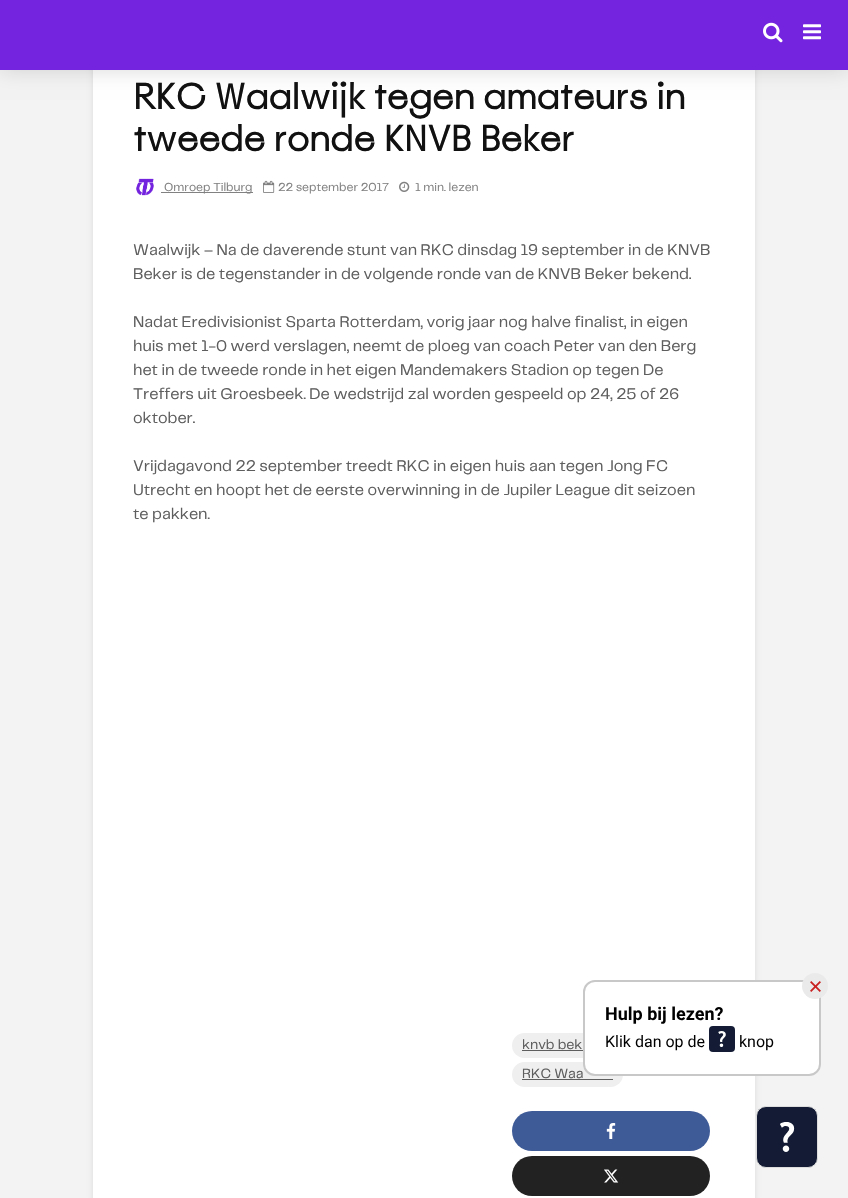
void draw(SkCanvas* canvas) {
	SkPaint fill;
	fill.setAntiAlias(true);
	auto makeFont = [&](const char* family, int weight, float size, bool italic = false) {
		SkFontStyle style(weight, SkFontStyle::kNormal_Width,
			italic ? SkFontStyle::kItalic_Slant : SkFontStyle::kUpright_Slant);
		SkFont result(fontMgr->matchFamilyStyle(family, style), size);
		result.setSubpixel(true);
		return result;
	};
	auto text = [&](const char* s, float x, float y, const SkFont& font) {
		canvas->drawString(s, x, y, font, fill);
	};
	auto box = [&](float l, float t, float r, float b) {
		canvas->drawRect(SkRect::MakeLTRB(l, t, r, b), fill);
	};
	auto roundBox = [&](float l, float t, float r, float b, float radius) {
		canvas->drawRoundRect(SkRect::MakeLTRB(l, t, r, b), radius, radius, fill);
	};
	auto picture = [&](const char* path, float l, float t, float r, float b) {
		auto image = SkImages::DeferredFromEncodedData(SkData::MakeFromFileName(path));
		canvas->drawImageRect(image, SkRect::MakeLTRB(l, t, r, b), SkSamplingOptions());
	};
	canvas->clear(0xFFF3F3F3);
	fill.setColor(0x1A000101);
	fill.setMaskFilter(SkMaskFilter::MakeBlur(kNormal_SkBlurStyle, 2.5f));
	canvas->drawRect(SkRect::MakeLTRB(93, 3, 755, 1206), fill);
	fill.setMaskFilter(nullptr);
	fill.setColor(0xFFFFFFFF);
	box(93, 70, 755, 1198);
	fill.setColor(0x26000000);
	fill.setMaskFilter(SkMaskFilter::MakeBlur(kNormal_SkBlurStyle, 10));
	canvas->drawRect(SkRect::MakeLTRB(0, 0, 848, 70), fill);
	fill.setMaskFilter(nullptr);
	fill.setColor(0xFF7424DE);
	box(0, 0, 848, 70);
	picture("image0.png", 763, 22, 783, 43);
	picture("image1.png", 803, 24, 821, 40);
	picture("image2.png", 136, 178, 154, 196);
	fill.setColor(0xFF818181);
	box(161, 192, 253, 193);
	picture("image3.png", 263, 180, 275, 193);
	picture("image4.png", 399, 181, 410, 192);
	fill.setColor(0xFFEFEFEF);
	roundBox(512, 1033, 606, 1058, 12.5f);
	fill.setColor(0xFF5E5E5E);
	box(522, 1050, 583, 1051);
	fill.setColor(0xFFEFEFEF);
	roundBox(512, 1062, 623, 1087, 12.5f);
	fill.setColor(0xFF5E5E5E);
	box(522, 1079, 613, 1080);
	fill.setColor(0xFF3E5B98);
	roundBox(512, 1111, 710, 1151, 20);
	picture("image5.png", 606, 1123, 616, 1139);
	fill.setColor(0xFF222222);
	roundBox(512, 1156, 710, 1196, 20);
	picture("image6.png", 604, 1169, 619, 1183);
	picture("image8.png", 756, 1106, 818, 1168);
	auto font1 = makeFont("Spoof", 700, 36);
	fill.setColor(0xFF111111);
	text("RKC Waalwijk tegen amateurs in", 133, 109, font1);
	text("tweede ronde KNVB Beker", 133, 151, font1);
	auto font2 = makeFont("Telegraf", 400, 12);
	fill.setColor(0xFF818181);
	text("Omroep Tilburg", 164, 191, font2);
	text("22 september 2017", 278, 191, font2);
	text("1 min. lezen", 415, 191, font2);
	auto font3 = makeFont("Telegraf", 400, 16);
	fill.setColor(0xFF5E5E5E);
	text("Waalwijk – Na de daverende stunt van RKC dinsdag 19 september in de KNVB", 133, 255, font3);
	text("Beker is de tegenstander in de volgende ronde van de KNVB Beker bekend.", 133, 279, font3);
	text("Nadat Eredivisionist Sparta Rotterdam, vorig jaar nog halve finalist, in eigen", 133, 327, font3);
	text("huis met 1-0 werd verslagen, neemt de ploeg van coach Peter van den Berg", 133, 351, font3);
	text("het in de tweede ronde in het eigen Mandemakers Stadion op tegen De", 133, 375, font3);
	text("Treffers uit Groesbeek. De wedstrijd zal worden gespeeld op 24, 25 of 26", 133, 399, font3);
	text("oktober.", 133, 423, font3);
	text("Vrijdagavond 22 september treedt RKC in eigen huis aan tegen Jong FC", 133, 471, font3);
	text("Utrecht en hoopt het de eerste overwinning in de Jupiler League dit seizoen", 133, 495, font3);
	text("te pakken.", 133, 519, font3);
	auto font4 = makeFont("Telegraf", 400, 14);
	text("knvb bek", 522, 1049, font4);
	text("RKC Waa", 522, 1078, font4);
	picture("image7.png", 583, 973, 828, 1076);
}
